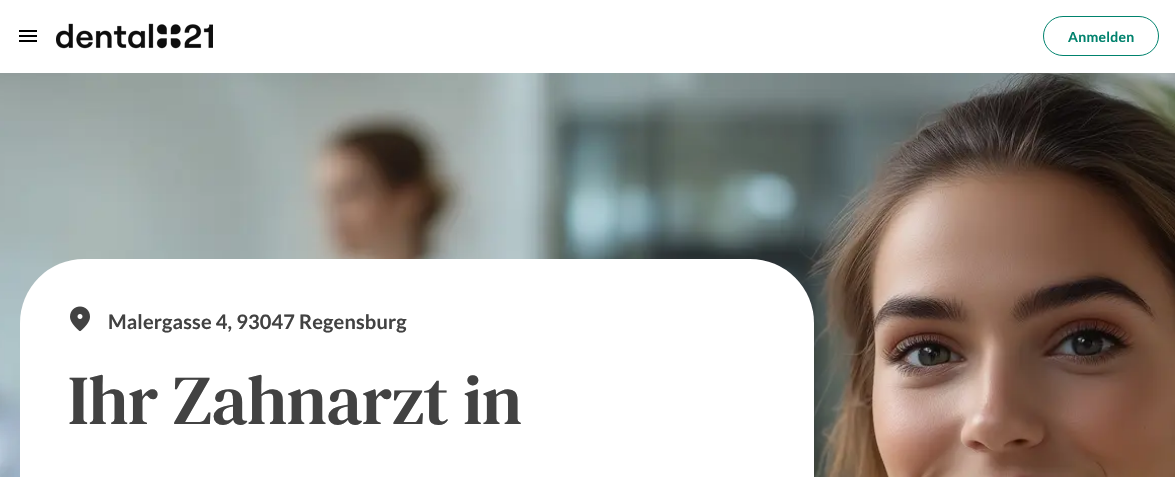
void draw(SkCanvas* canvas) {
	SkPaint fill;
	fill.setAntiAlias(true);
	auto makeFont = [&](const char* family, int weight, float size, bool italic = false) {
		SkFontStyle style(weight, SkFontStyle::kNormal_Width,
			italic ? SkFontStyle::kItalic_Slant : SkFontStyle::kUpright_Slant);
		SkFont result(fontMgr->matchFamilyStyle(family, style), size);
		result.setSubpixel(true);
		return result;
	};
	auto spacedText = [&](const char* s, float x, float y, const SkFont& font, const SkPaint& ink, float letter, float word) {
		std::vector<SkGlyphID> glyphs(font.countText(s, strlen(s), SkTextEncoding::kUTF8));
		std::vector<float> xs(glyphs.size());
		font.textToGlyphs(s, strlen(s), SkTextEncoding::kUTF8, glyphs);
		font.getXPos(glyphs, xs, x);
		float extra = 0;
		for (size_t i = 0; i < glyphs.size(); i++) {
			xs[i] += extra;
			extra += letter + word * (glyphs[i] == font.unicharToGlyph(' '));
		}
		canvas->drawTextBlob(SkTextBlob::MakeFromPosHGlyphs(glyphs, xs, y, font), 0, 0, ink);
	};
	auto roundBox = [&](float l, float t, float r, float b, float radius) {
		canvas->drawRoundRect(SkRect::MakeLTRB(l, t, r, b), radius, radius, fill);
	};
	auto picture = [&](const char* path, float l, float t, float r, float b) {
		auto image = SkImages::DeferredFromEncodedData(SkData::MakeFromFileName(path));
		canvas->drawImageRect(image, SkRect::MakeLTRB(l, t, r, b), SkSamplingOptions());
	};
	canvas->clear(0xFFFFFFFF);
	picture("image0.png", 19, 30, 37, 42);
	picture("image1.png", 56, 23, 213, 49);
	fill.setStyle(SkPaint::kStroke_Style);
	fill.setStrokeWidth(1);
	fill.setColor(0xFF00826D);
	canvas->drawRoundRect(SkRect::MakeLTRB(1043.5f, 16.5f, 1158.5f, 55.5f), 19.5f, 19.5f, fill);
	picture("image2.png", 0, 73, 1175, 477);
	fill.setStyle(SkPaint::kFill_Style);
	fill.setColor(0xFFFFFFFF);
	roundBox(20, 259, 814, 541, 64);
	picture("image3.png", 70, 306, 90, 332);
	auto font1 = makeFont("Lato", 700, 14);
	fill.setColor(0xFF00826D);
	spacedText("Anmelden", 1068, 42, font1, fill, 0.25f, 0);
	auto font2 = makeFont("Lato", 700, 20);
	fill.setColor(0xFF424242);
	spacedText("Malergasse 4, 93047 Regensburg", 108, 329, font2, fill, 0.15f, 0);
	auto font3 = makeFont("DM Serif Text", 400, 70);
	spacedText("Ihr Zahnarzt in", 68, 424, font3, fill, -0.5f, 0);
}
